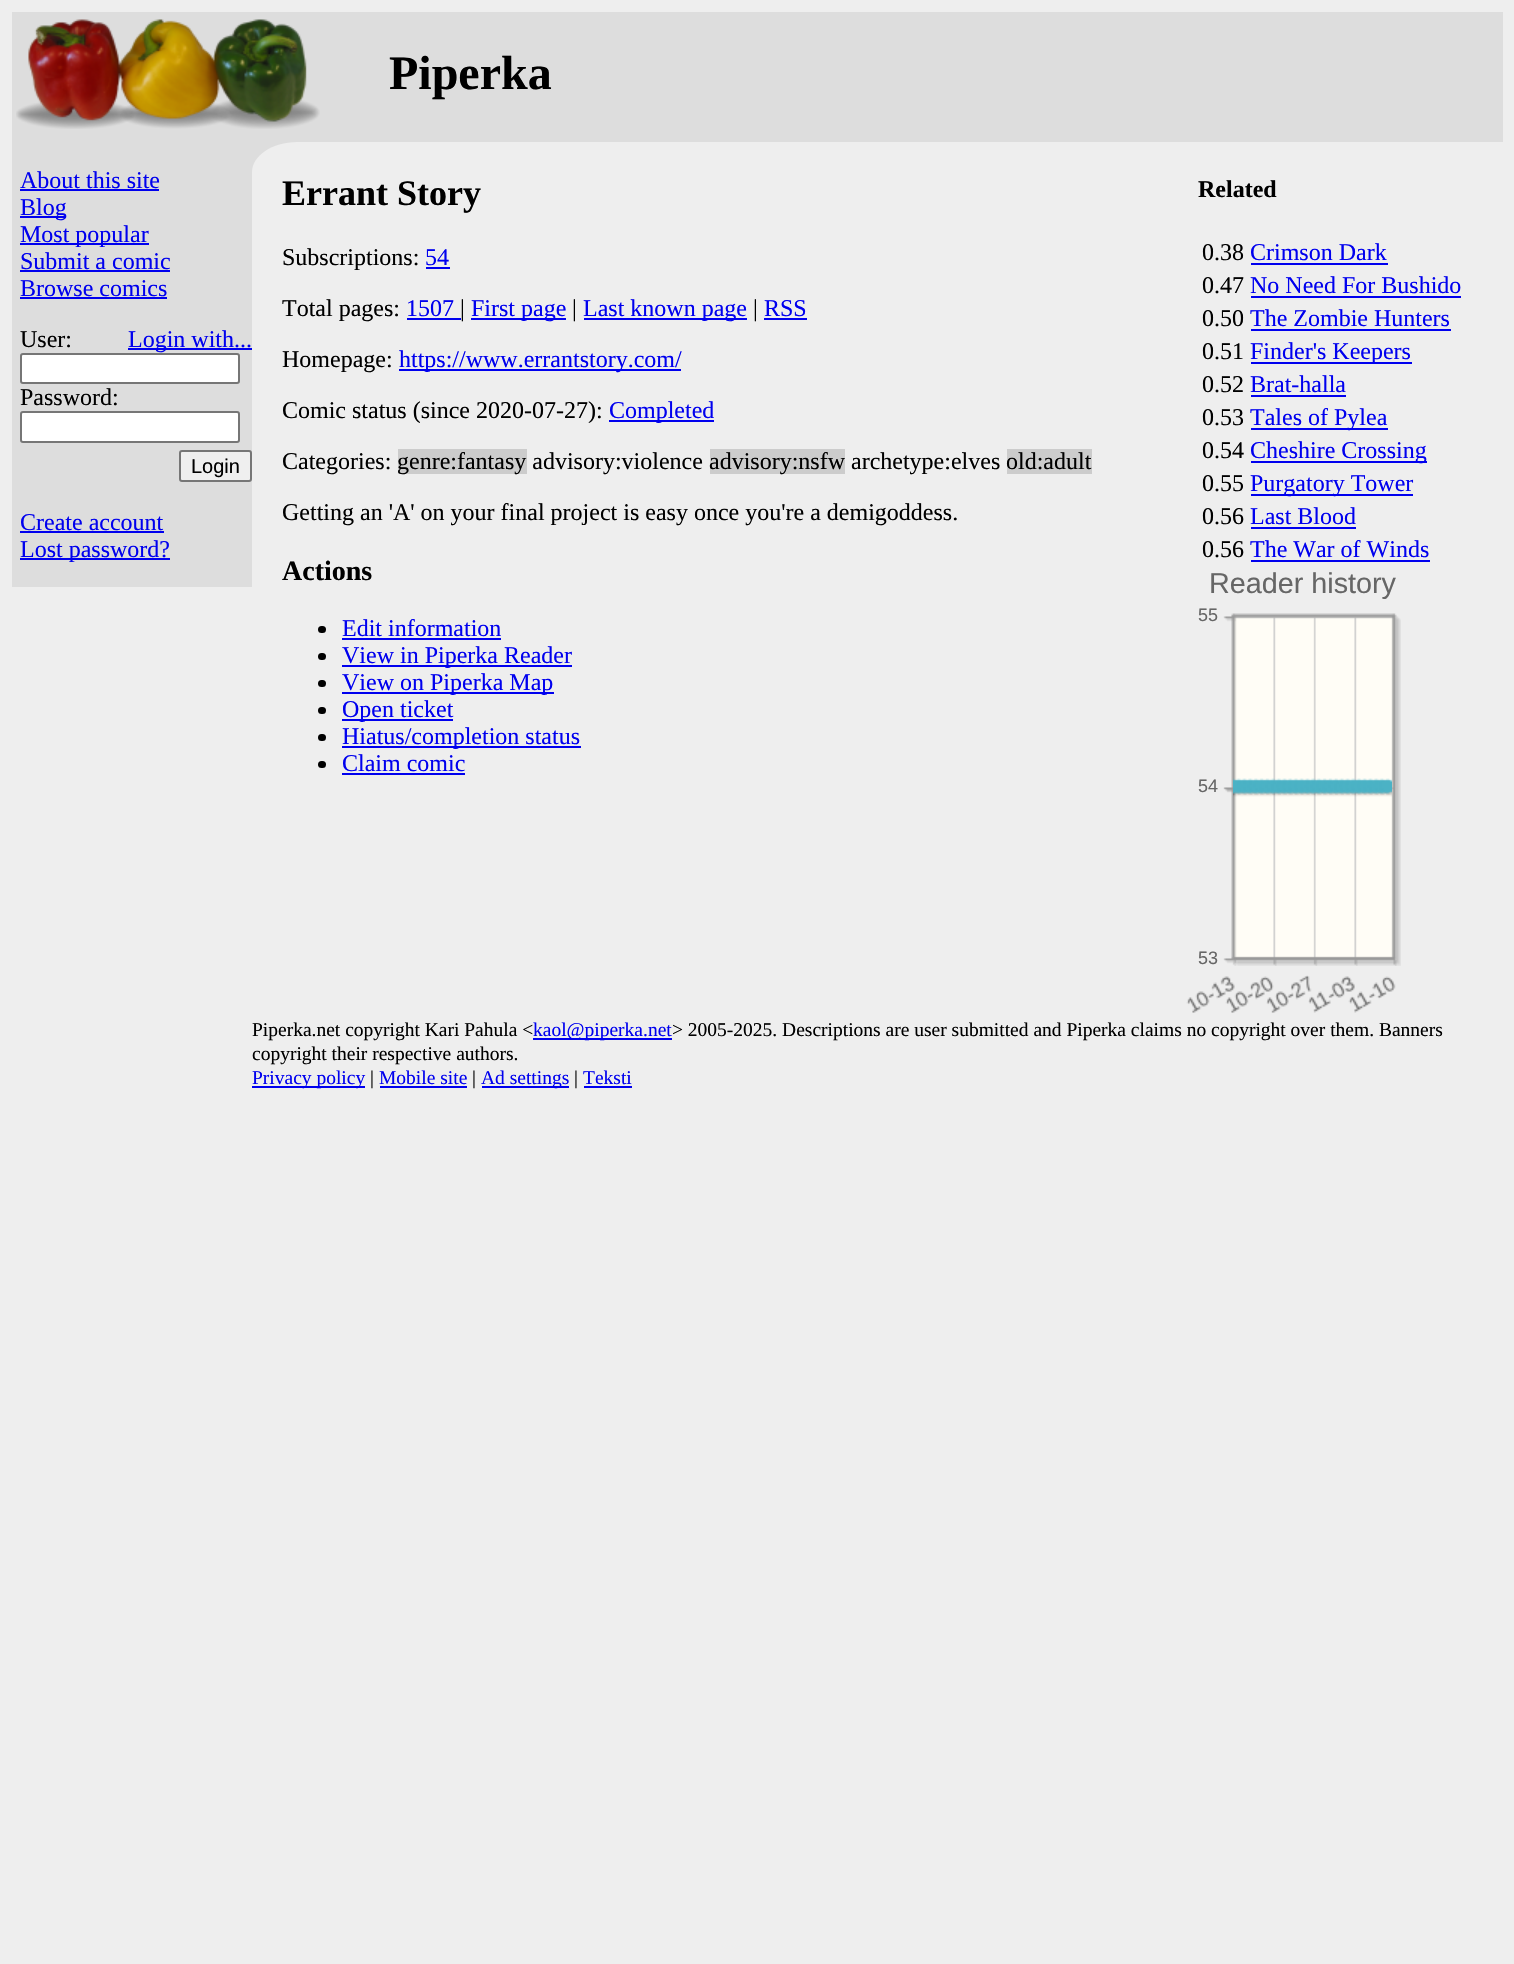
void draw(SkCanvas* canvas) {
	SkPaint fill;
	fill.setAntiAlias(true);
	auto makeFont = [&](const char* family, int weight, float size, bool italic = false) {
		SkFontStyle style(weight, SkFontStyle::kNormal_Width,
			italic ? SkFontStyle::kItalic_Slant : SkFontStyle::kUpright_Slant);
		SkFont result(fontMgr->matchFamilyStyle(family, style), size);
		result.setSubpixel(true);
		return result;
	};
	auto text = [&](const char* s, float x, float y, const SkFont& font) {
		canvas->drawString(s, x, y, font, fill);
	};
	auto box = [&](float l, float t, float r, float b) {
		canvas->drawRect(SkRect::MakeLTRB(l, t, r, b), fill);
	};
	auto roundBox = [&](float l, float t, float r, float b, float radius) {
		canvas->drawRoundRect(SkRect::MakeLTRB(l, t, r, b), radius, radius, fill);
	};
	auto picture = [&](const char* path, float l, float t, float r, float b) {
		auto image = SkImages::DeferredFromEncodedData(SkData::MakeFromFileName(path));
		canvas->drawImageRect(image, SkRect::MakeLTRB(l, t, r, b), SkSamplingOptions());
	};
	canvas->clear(0xFFEEEEEE);
	fill.setColor(0xFFDDDDDD);
	box(12, 12, 1503, 143);
	picture("image0.png", 16, 19, 320, 129);
	box(252, 143, 286, 172);
	box(12, 143, 252, 587);
	fill.setColor(0xFF0000EE);
	box(20, 189, 159, 191);
	box(20, 216, 66, 218);
	box(20, 243, 149, 245);
	box(20, 270, 170, 272);
	box(20, 297, 167, 299);
	box(128, 348, 252, 350);
	fill.setColor(0xFFFFFFFF);
	canvas->drawRoundRect(SkRect::MakeLTRB(21, 354, 239, 383), 2, 2, fill);
	fill.setStyle(SkPaint::kStroke_Style);
	fill.setStrokeWidth(2);
	fill.setColor(0xFF767676);
	canvas->drawRoundRect(SkRect::MakeLTRB(21, 354, 239, 383), 2, 2, fill);
	fill.setStyle(SkPaint::kFill_Style);
	fill.setColor(0xFFFFFFFF);
	canvas->drawRoundRect(SkRect::MakeLTRB(21, 412, 239, 442), 2, 2, fill);
	fill.setStyle(SkPaint::kStroke_Style);
	fill.setColor(0xFF767676);
	canvas->drawRoundRect(SkRect::MakeLTRB(21, 412, 239, 442), 2, 2, fill);
	fill.setStyle(SkPaint::kFill_Style);
	fill.setColor(0xFFEFEFEF);
	canvas->drawRoundRect(SkRect::MakeLTRB(180, 451, 251, 481), 2, 2, fill);
	fill.setStyle(SkPaint::kStroke_Style);
	fill.setColor(0xFF767676);
	canvas->drawRoundRect(SkRect::MakeLTRB(180, 451, 251, 481), 2, 2, fill);
	fill.setStyle(SkPaint::kFill_Style);
	fill.setColor(0xFF0000EE);
	box(20, 531, 164, 533);
	box(20, 558, 170, 560);
	fill.setColor(0xFFEEEEEE);
	canvas->drawPath(SkPathBuilder().moveTo(297, 142).lineTo(1503, 142).lineTo(1503, 777).lineTo(252, 777).lineTo(252, 172).cubicTo(252, 156, 272, 142, 297, 142).close().detach(), fill);
	fill.setColor(0xFF0000EE);
	box(1251, 263, 1388, 265);
	box(1251, 296, 1461, 298);
	box(1251, 329, 1451, 331);
	box(1251, 362, 1412, 364);
	box(1251, 395, 1346, 397);
	box(1251, 428, 1388, 430);
	box(1251, 461, 1427, 463);
	box(1251, 494, 1413, 496);
	box(1251, 527, 1356, 529);
	box(1251, 560, 1430, 562);
	box(426, 267, 450, 269);
	box(407, 318, 461, 320);
	box(471, 318, 566, 320);
	box(584, 318, 747, 320);
	box(764, 318, 807, 320);
	box(399, 369, 681, 371);
	box(609, 420, 714, 422);
	fill.setColor(0xFFCCCCCC);
	box(398, 449, 527, 474);
	box(710, 449, 845, 474);
	box(1007, 449, 1092, 474);
	fill.setColor(0xFF000000);
	roundBox(318, 626, 326, 633, 3.5f);
	fill.setColor(0xFF0000EE);
	box(342, 638, 501, 640);
	fill.setColor(0xFF000000);
	roundBox(318, 653, 326, 660, 3.5f);
	fill.setColor(0xFF0000EE);
	box(342, 665, 572, 667);
	fill.setColor(0xFF000000);
	roundBox(318, 680, 326, 687, 3.5f);
	fill.setColor(0xFF0000EE);
	box(342, 692, 554, 694);
	fill.setColor(0xFF000000);
	roundBox(318, 707, 326, 714, 3.5f);
	fill.setColor(0xFF0000EE);
	box(342, 719, 453, 721);
	fill.setColor(0xFF000000);
	roundBox(318, 734, 326, 741, 3.5f);
	fill.setColor(0xFF0000EE);
	box(342, 746, 581, 748);
	fill.setColor(0xFF000000);
	roundBox(318, 761, 326, 768, 3.5f);
	fill.setColor(0xFF0000EE);
	box(342, 773, 465, 775);
	picture("image1.png", 1223, 613, 1401, 966);
	picture("image2.png", 1233, 778, 1392, 797);
	picture("image3.png", 1186, 976, 1235, 1013);
	picture("image4.png", 1225, 976, 1274, 1013);
	picture("image5.png", 1266, 975, 1312, 1013);
	picture("image6.png", 1308, 976, 1355, 1013);
	picture("image7.png", 1348, 976, 1396, 1013);
	box(533, 1038, 672, 1040);
	box(252, 1086, 365, 1088);
	box(380, 1086, 467, 1088);
	box(482, 1086, 569, 1088);
	box(584, 1086, 632, 1088);
	auto font1 = makeFont("Liberation Serif", 700, 48);
	fill.setColor(0xFF000000);
	text("Piperka", 389, 89, font1);
	auto font2 = makeFont("Liberation Serif", 400, 24);
	fill.setColor(0xFF0000EE);
	text("About this site", 20, 188, font2);
	text("Blog", 20, 215, font2);
	text("Most popular", 20, 242, font2);
	text("Submit a comic", 20, 269, font2);
	text("Browse comics", 20, 296, font2);
	fill.setColor(0xFF000000);
	text("User:", 20, 347, font2);
	fill.setColor(0xFF0000EE);
	text("Login with...", 128, 347, font2);
	fill.setColor(0xFF000000);
	text("Password:", 20, 405, font2);
	auto font3 = makeFont("Liberation Sans", 400, 20);
	text("Login", 191, 473, font3);
	fill.setColor(0xFF0000EE);
	text("Create account", 20, 530, font2);
	text("Lost password?", 20, 557, font2);
	auto font4 = makeFont("Liberation Serif", 700, 36);
	fill.setColor(0xFF000000);
	text("Errant Story", 282, 205, font4);
	auto font5 = makeFont("Liberation Serif", 700, 24);
	text("Related", 1198, 197, font5);
	text("0.38", 1202, 260, font2);
	fill.setColor(0xFF0000EE);
	text("Crimson Dark", 1250, 260, font2);
	fill.setColor(0xFF000000);
	text("0.47", 1202, 293, font2);
	fill.setColor(0xFF0000EE);
	text("No Need For Bushido", 1250, 293, font2);
	fill.setColor(0xFF000000);
	text("0.50", 1202, 326, font2);
	fill.setColor(0xFF0000EE);
	text("The Zombie Hunters", 1250, 326, font2);
	fill.setColor(0xFF000000);
	text("0.51", 1202, 359, font2);
	fill.setColor(0xFF0000EE);
	text("Finder's Keepers", 1250, 359, font2);
	fill.setColor(0xFF000000);
	text("0.52", 1202, 392, font2);
	fill.setColor(0xFF0000EE);
	text("Brat-halla", 1250, 392, font2);
	fill.setColor(0xFF000000);
	text("0.53", 1202, 425, font2);
	fill.setColor(0xFF0000EE);
	text("Tales of Pylea", 1250, 425, font2);
	fill.setColor(0xFF000000);
	text("0.54", 1202, 458, font2);
	fill.setColor(0xFF0000EE);
	text("Cheshire Crossing", 1250, 458, font2);
	fill.setColor(0xFF000000);
	text("0.55", 1202, 491, font2);
	fill.setColor(0xFF0000EE);
	text("Purgatory Tower", 1250, 491, font2);
	fill.setColor(0xFF000000);
	text("0.56", 1202, 524, font2);
	fill.setColor(0xFF0000EE);
	text("Last Blood", 1250, 524, font2);
	fill.setColor(0xFF000000);
	text("0.56", 1202, 557, font2);
	fill.setColor(0xFF0000EE);
	text("The War of Winds", 1250, 557, font2);
	fill.setColor(0xFF000000);
	text("Subscriptions:", 282, 265, font2);
	fill.setColor(0xFF0000EE);
	text("54", 425, 265, font2);
	fill.setColor(0xFF000000);
	text("Total pages:", 282, 316, font2);
	fill.setColor(0xFF0000EE);
	text("1507", 406, 316, font2);
	fill.setColor(0xFF000000);
	text("|", 460, 316, font2);
	fill.setColor(0xFF0000EE);
	text("First page", 471, 316, font2);
	fill.setColor(0xFF000000);
	text("|", 572, 316, font2);
	fill.setColor(0xFF0000EE);
	text("Last known page", 583, 316, font2);
	fill.setColor(0xFF000000);
	text("|", 753, 316, font2);
	fill.setColor(0xFF0000EE);
	text("RSS", 764, 316, font2);
	fill.setColor(0xFF000000);
	text("Homepage:", 282, 367, font2);
	fill.setColor(0xFF0000EE);
	text("https://www.errantstory.com/", 399, 367, font2);
	fill.setColor(0xFF000000);
	text("Comic status (since 2020-07-27):", 282, 418, font2);
	fill.setColor(0xFF0000EE);
	text("Completed", 609, 418, font2);
	fill.setColor(0xFF000000);
	text("Categories:", 282, 469, font2);
	text("genre:fantasy advisory:violence", 397, 469, font2);
	text("advisory:nsfw archetype:elves", 709, 469, font2);
	text("old:adult", 1006, 469, font2);
	text("Getting an 'A' on your final project is easy once you're a demigoddess.", 282, 520, font2);
	auto font6 = makeFont("Liberation Serif", 700, 28);
	text("Actions", 282, 580, font6);
	fill.setColor(0xFF0000EE);
	text("Edit information", 342, 636, font2);
	text("View in Piperka Reader", 342, 663, font2);
	text("View on Piperka Map", 342, 690, font2);
	text("Open ticket", 342, 717, font2);
	text("Hiatus/completion status", 342, 744, font2);
	text("Claim comic", 342, 771, font2);
	auto font7 = makeFont("Liberation Sans", 400, 28.75f);
	fill.setColor(0xFF666666);
	text("Reader history", 1209, 593, font7);
	auto font8 = makeFont("Liberation Sans", 400, 18);
	text("55", 1198, 621, font8);
	text("54", 1198, 792, font8);
	text("53", 1198, 964, font8);
	auto font9 = makeFont("Liberation Serif", 400, 19.5f);
	fill.setColor(0xFF000000);
	text("Piperka.net copyright Kari Pahula <", 252, 1036, font9);
	fill.setColor(0xFF0000EE);
	text("kaol@piperka.net", 533, 1036, font9);
	fill.setColor(0xFF000000);
	text("> 2005-2025. Descriptions are user submitted and Piperka claims no copyright over them. Banners", 672, 1036, font9);
	text("copyright their respective authors.", 252, 1060, font9);
	fill.setColor(0xFF0000EE);
	text("Privacy policy", 252, 1084, font9);
	fill.setColor(0xFF000000);
	text("|", 370, 1084, font9);
	fill.setColor(0xFF0000EE);
	text("Mobile site", 379, 1084, font9);
	fill.setColor(0xFF000000);
	text("|", 472, 1084, font9);
	fill.setColor(0xFF0000EE);
	text("Ad settings", 481, 1084, font9);
	fill.setColor(0xFF000000);
	text("|", 574, 1084, font9);
	fill.setColor(0xFF0000EE);
	text("Teksti", 583, 1084, font9);
}
